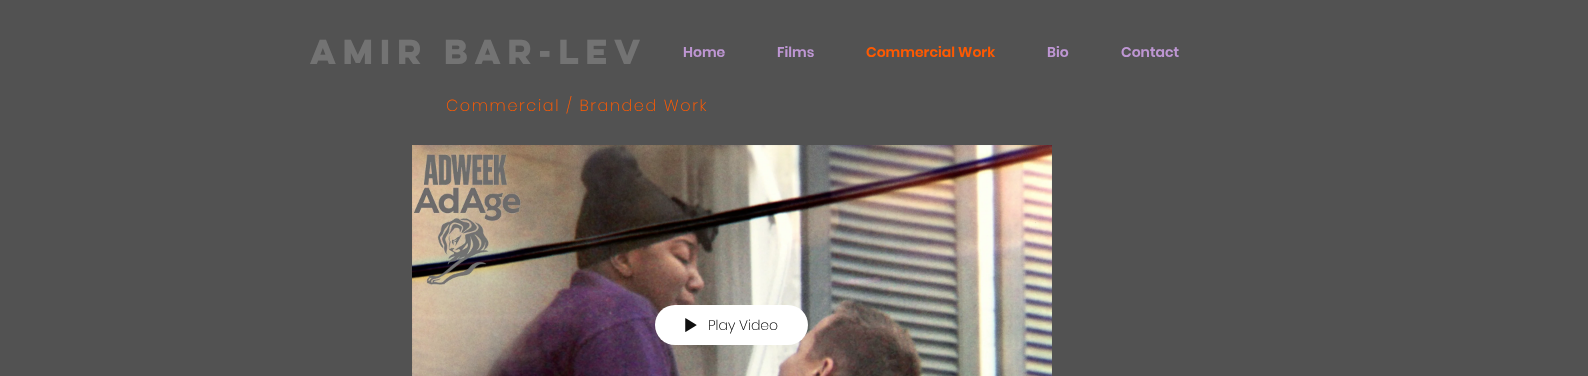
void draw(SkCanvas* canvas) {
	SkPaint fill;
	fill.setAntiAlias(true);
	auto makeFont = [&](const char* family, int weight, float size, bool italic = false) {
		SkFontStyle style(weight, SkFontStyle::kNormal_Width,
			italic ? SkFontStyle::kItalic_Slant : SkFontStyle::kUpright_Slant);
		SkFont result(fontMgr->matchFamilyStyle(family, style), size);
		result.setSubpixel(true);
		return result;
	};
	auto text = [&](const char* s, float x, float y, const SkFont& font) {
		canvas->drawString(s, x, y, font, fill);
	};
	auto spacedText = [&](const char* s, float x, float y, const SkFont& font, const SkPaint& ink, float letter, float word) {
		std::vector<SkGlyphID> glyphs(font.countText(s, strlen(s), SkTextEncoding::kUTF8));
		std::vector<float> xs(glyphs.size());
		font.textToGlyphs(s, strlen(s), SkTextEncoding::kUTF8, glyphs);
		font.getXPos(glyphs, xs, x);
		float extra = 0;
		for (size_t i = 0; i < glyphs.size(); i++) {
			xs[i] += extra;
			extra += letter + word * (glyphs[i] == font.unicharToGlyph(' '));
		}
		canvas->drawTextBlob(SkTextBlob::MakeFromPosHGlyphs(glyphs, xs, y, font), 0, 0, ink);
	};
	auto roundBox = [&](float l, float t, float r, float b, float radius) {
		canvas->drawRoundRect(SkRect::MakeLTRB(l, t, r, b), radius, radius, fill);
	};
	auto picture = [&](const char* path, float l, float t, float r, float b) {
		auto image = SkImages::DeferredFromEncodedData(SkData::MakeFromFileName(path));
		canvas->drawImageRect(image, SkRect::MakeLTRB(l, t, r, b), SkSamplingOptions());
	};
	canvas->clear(0xFF525252);
	picture("image0.png", 412, 145, 1052, 376);
	fill.setColor(0xFFFFFFFF);
	roundBox(655, 305, 808, 345, 20);
	picture("image1.png", 685, 318, 697, 332);
	auto font1 = makeFont("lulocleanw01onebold", 700, 31);
	fill.setColor(0xFF737373);
	text("AMIR BAR-LEV", 310, 64, font1);
	auto font2 = makeFont("Poppins", 600, 14);
	fill.setColor(0xFFBE96D3);
	text("Home", 683, 57, font2);
	text("Films", 777, 57, font2);
	fill.setColor(0xFFFF5900);
	text("Commercial Work", 866, 57, font2);
	fill.setColor(0xFFBE96D3);
	text("Bio", 1047, 57, font2);
	text("Contact", 1121, 57, font2);
	auto font3 = makeFont("Poppins", 200, 16);
	fill.setColor(0xFFFF5900);
	spacedText("Commercial / Branded Work", 446, 111, font3, fill, 1.6f, 0);
	auto font4 = makeFont("Poppins", 200, 14);
	fill.setColor(0xFF0F0F0F);
	text("Play Video", 708, 330, font4);
}
